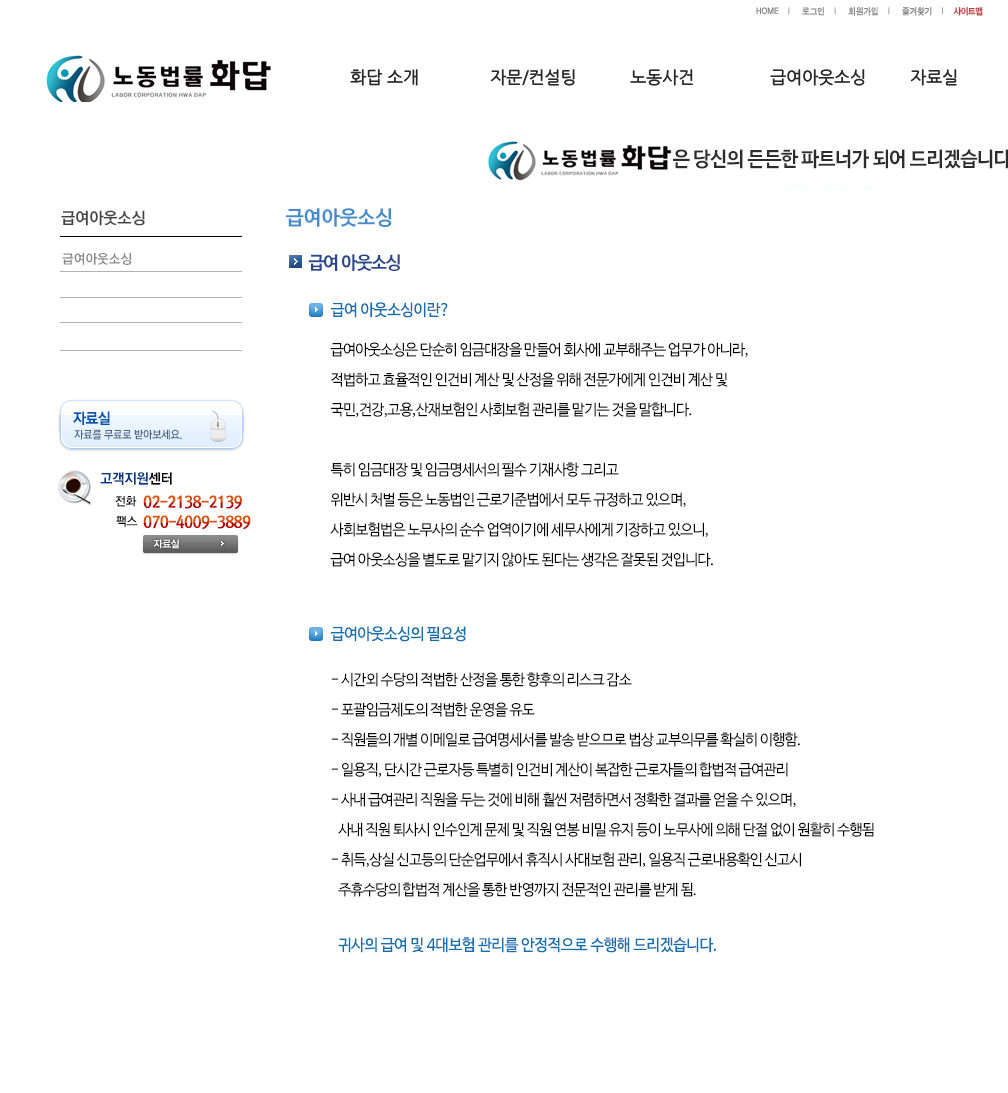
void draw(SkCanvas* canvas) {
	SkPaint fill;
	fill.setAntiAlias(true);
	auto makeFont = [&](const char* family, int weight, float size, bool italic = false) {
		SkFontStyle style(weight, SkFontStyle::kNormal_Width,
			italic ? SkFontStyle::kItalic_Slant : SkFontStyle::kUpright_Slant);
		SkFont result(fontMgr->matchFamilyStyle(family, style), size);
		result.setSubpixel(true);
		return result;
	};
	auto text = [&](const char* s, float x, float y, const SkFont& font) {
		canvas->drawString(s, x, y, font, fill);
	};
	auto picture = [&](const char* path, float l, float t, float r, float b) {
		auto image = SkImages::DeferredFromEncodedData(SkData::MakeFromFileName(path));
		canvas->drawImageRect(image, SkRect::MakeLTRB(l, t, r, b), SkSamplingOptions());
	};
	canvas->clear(0xFFFFFFFF);
	picture("image0.png", 756, 7, 790, 15);
	picture("image1.png", 802, 7, 836, 16);
	picture("image2.png", 848, 7, 890, 16);
	picture("image3.png", 902, 7, 943, 16);
	picture("image4.png", 953, 7, 983, 17);
	picture("image5.png", 46, 55, 271, 102);
	picture("image6.png", 488, 133, 1008, 190);
	picture("image7.png", 60, 210, 242, 351);
	picture("image8.png", 58, 399, 251, 555);
	picture("image9.png", 286, 208, 392, 227);
	picture("image10.png", 289, 254, 874, 953);
	auto font1 = makeFont("NanumGothic", 700, 17);
	fill.setColor(0xFF282828);
	text("화답 소개", 350, 83, font1);
	text("자문/컨설팅", 490, 83, font1);
	text("노동사건", 630, 83, font1);
	text("급여아웃소싱", 770, 83, font1);
	text("자료실", 910, 83, font1);
}
